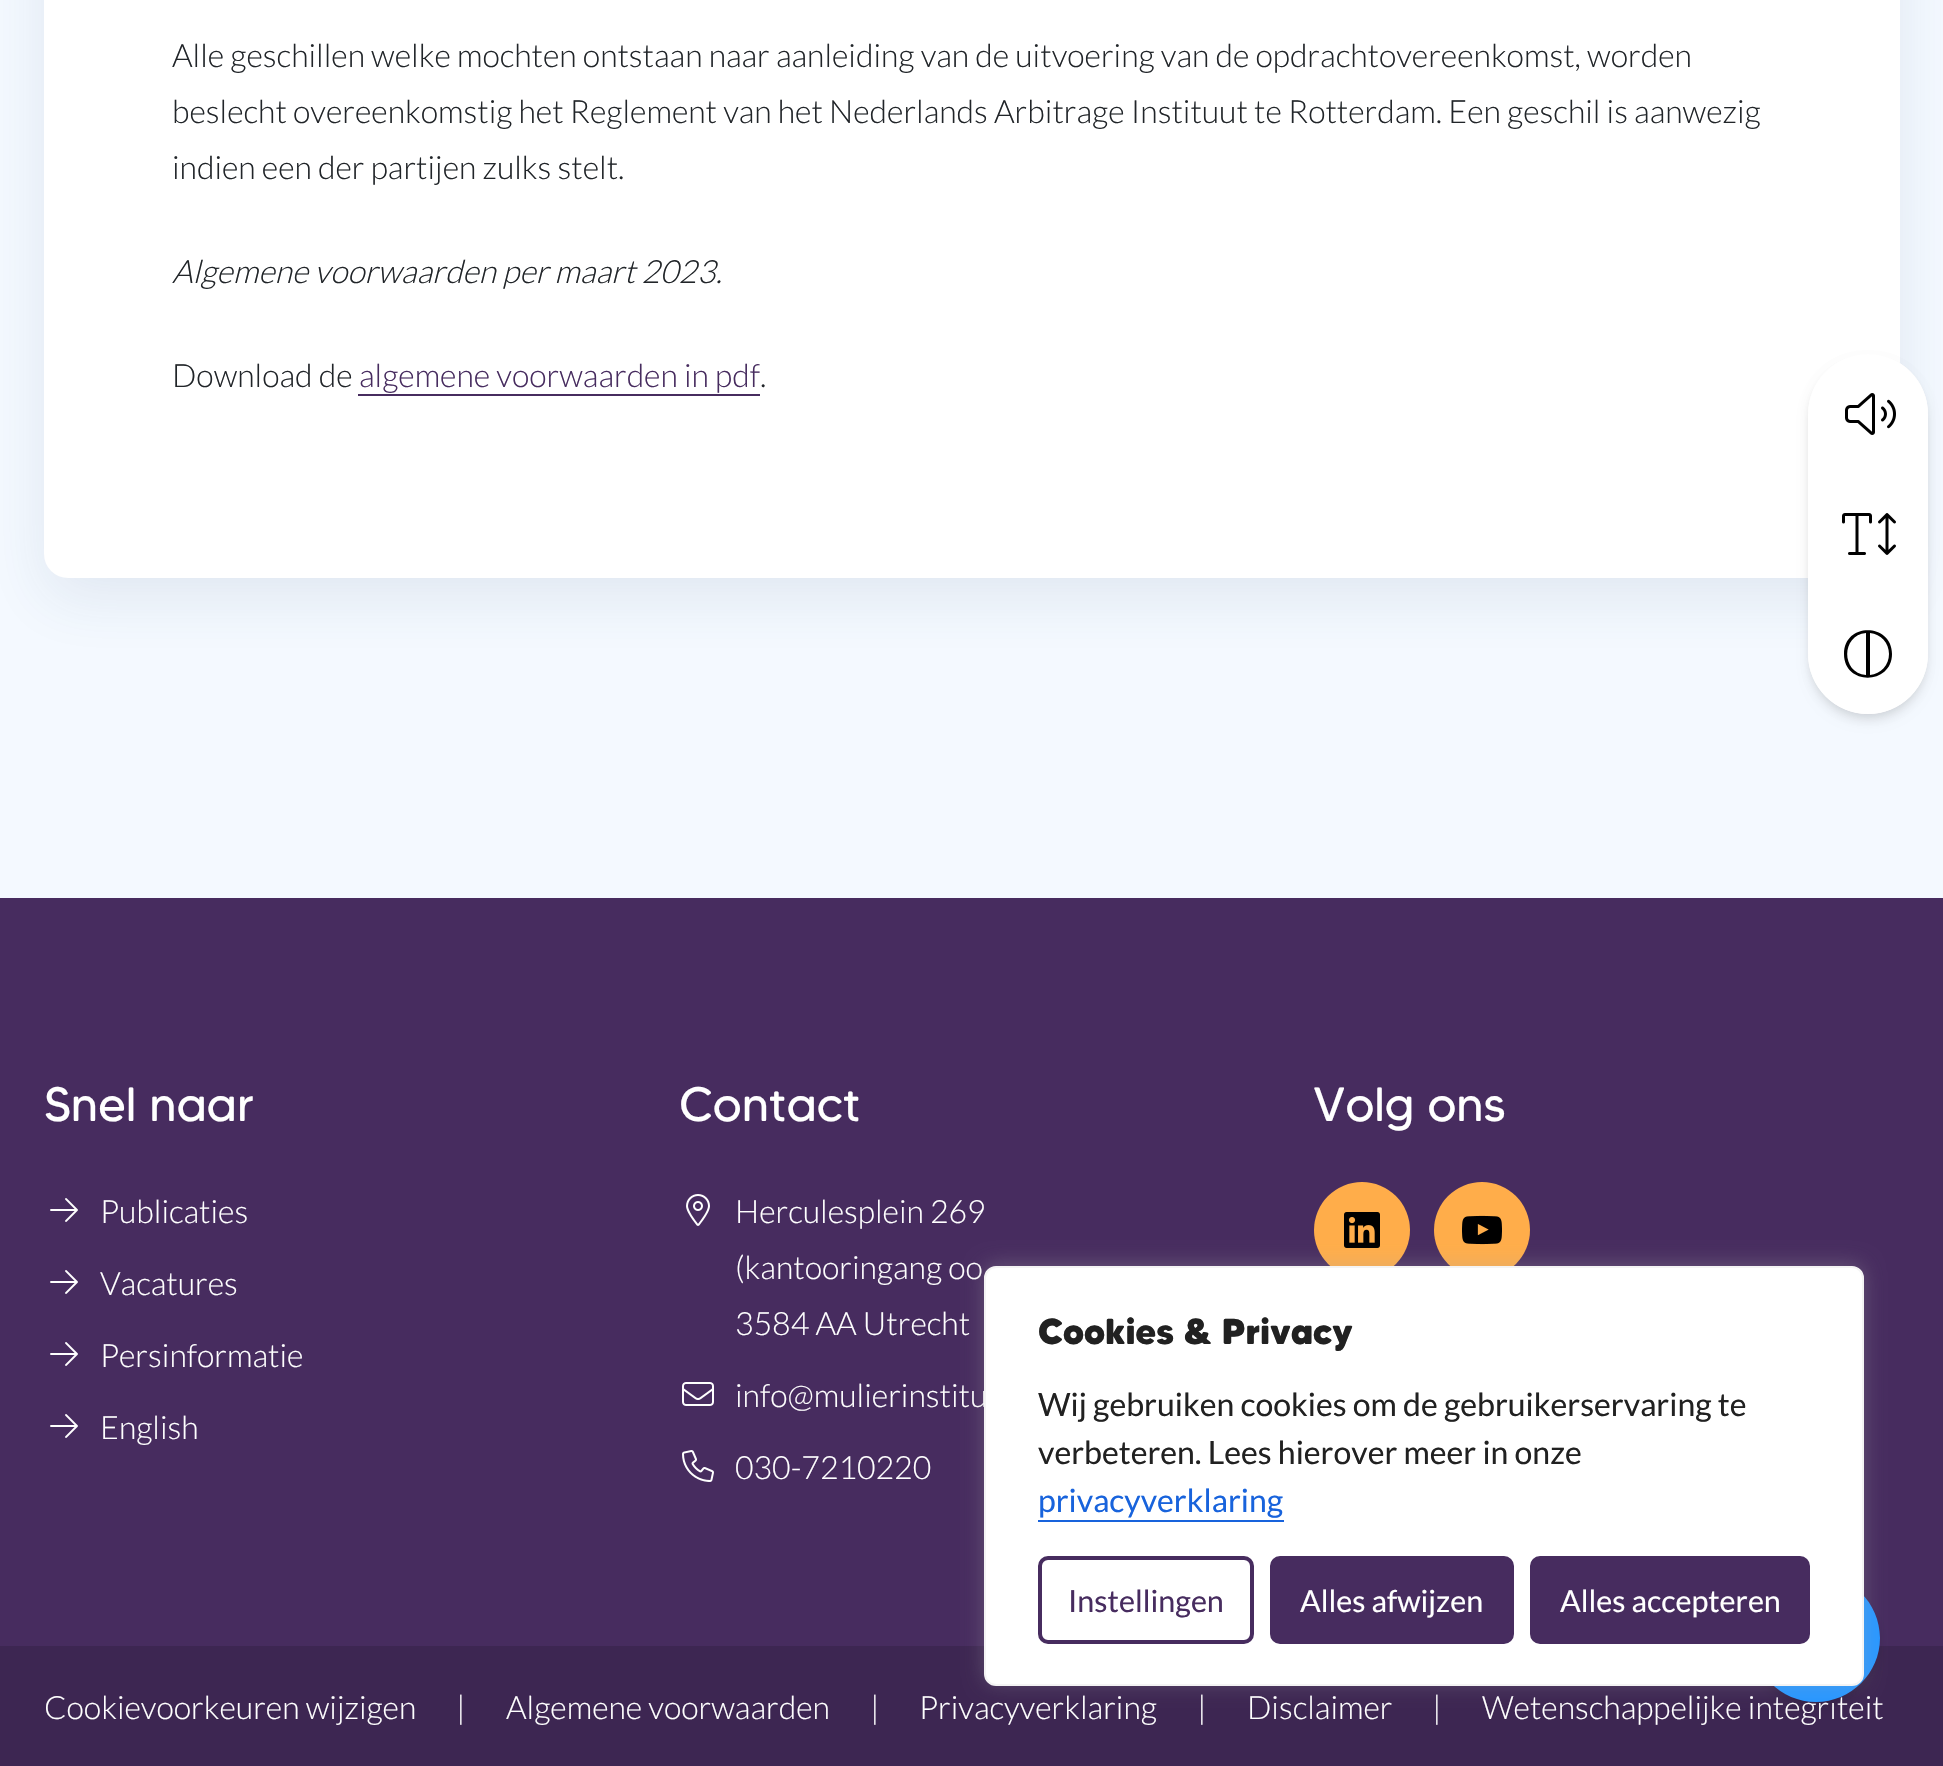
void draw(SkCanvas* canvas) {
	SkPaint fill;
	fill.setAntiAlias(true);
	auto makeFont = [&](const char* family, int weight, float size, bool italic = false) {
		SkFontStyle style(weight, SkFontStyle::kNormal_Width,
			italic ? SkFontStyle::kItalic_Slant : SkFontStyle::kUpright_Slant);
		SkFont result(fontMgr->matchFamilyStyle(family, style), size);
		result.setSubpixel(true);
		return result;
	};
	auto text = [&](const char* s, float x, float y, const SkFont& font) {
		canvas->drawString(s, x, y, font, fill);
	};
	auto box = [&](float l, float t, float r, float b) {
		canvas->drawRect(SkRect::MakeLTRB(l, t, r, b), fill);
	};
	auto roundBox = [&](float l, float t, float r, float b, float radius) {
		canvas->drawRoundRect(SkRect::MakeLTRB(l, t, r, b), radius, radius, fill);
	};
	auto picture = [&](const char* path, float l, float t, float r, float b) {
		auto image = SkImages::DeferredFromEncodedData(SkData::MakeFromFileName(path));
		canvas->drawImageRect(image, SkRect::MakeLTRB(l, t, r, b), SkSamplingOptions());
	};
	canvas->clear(0xFFF4F9FF);
	fill.setColor(0x1A255078);
	fill.setMaskFilter(SkMaskFilter::MakeBlur(kNormal_SkBlurStyle, 30));
	canvas->drawRoundRect(SkRect::MakeLTRB(44, -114, 1900, 598), 24, 24, fill);
	fill.setMaskFilter(nullptr);
	fill.setColor(0xFFFFFFFF);
	roundBox(44, -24, 1900, 578, 24);
	fill.setColor(0xFF472C5F);
	box(358, 394, 760, 396);
	fill.setColor(0x0F000000);
	fill.setMaskFilter(SkMaskFilter::MakeBlur(kNormal_SkBlurStyle, 4));
	canvas->drawRoundRect(SkRect::MakeLTRB(1810, 360, 1926, 716), 58, 58, fill);
	fill.setMaskFilter(nullptr);
	fill.setColor(0x1A000000);
	fill.setMaskFilter(SkMaskFilter::MakeBlur(kNormal_SkBlurStyle, 6));
	canvas->drawRoundRect(SkRect::MakeLTRB(1810, 364, 1926, 720), 58, 58, fill);
	fill.setMaskFilter(nullptr);
	fill.setColor(0xFFFFFFFF);
	roundBox(1808, 354, 1928, 714, 60);
	canvas->drawPath(SkPathBuilder().moveTo(1868, 354).cubicTo(1901, 354, 1928, 381, 1928, 414).lineTo(1928, 474).lineTo(1808, 474).lineTo(1808, 414).cubicTo(1808, 381, 1835, 354, 1868, 354).close().detach(), fill);
	picture("image0.png", 1845, 393, 1896, 435);
	picture("image1.png", 1842, 513, 1896, 555);
	canvas->drawPath(SkPathBuilder().moveTo(1808, 594).lineTo(1928, 594).lineTo(1928, 654).cubicTo(1928, 687, 1901, 714, 1868, 714).cubicTo(1835, 714, 1808, 687, 1808, 654).close().detach(), fill);
	fill.setColor(0xFF000000);
	canvas->drawPath(SkPathBuilder().moveTo(1866, 675).lineTo(1866, 633).cubicTo(1841, 635, 1841, 673, 1866, 675).close().moveTo(1889, 654).cubicTo(1889, 643, 1881, 634, 1870, 633).lineTo(1870, 675).cubicTo(1881, 674, 1889, 665, 1889, 654).close().moveTo(1844, 654).cubicTo(1844, 622, 1892, 623, 1892, 654).cubicTo(1892, 685, 1844, 686, 1844, 654).close().detach(), fill);
	fill.setColor(0xFF472C5F);
	box(0, 898, 1943, 1646);
	picture("image2.png", 50, 1198, 78, 1222);
	picture("image2.png", 50, 1270, 78, 1294);
	picture("image2.png", 50, 1342, 78, 1366);
	picture("image2.png", 50, 1414, 78, 1438);
	picture("image3.png", 686, 1194, 710, 1226);
	picture("image4.png", 682, 1382, 714, 1406);
	picture("image5.png", 682, 1450, 714, 1482);
	fill.setColor(0xFFFFAD4A);
	canvas->drawCircle(1362, 1230, 48, fill);
	picture("image6.png", 1344, 1212, 1380, 1248);
	canvas->drawCircle(1482, 1230, 48, fill);
	picture("image7.png", 1462, 1215, 1502, 1245);
	fill.setColor(0xFF3D2652);
	box(0, 1646, 1943, 1766);
	fill.setColor(0x1A000000);
	fill.setMaskFilter(SkMaskFilter::MakeBlur(kNormal_SkBlurStyle, 4));
	canvas->drawRoundRect(SkRect::MakeLTRB(1756, 1582, 1876, 1702), 60, 60, fill);
	fill.setMaskFilter(nullptr);
	fill.setMaskFilter(SkMaskFilter::MakeBlur(kNormal_SkBlurStyle, 6));
	canvas->drawRoundRect(SkRect::MakeLTRB(1754, 1584, 1878, 1708), 62, 62, fill);
	fill.setMaskFilter(nullptr);
	auto font1 = makeFont("Lato", 300, 32);
	fill.setColor(0xFF212529);
	text("Alle geschillen welke mochten ontstaan naar aanleiding van de uitvoering van de opdrachtovereenkomst, worden", 172, 67, font1);
	text("beslecht overeenkomstig het Reglement van het Nederlands Arbitrage Instituut te Rotterdam. Een geschil is aanwezig", 172, 123, font1);
	text("indien een der partijen zulks stelt.", 172, 179, font1);
	auto font2 = makeFont("Lato", 300, 32, true);
	text("Algemene voorwaarden per maart 2023.", 172, 283, font2);
	text("Download de", 172, 387, font1);
	fill.setColor(0xFF472C5F);
	text("algemene voorwaarden in pdf", 359, 387, font1);
	fill.setColor(0xFF212529);
	text(".", 760, 387, font1);
	auto font3 = makeFont("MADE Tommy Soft", 400, 48);
	fill.setColor(0xFFFFFFFF);
	text("Snel naar", 44, 1121, font3);
	text("Publicaties", 100, 1223, font1);
	text("Vacatures", 100, 1295, font1);
	text("Persinformatie", 100, 1367, font1);
	text("English", 100, 1439, font1);
	text("Contact", 679, 1121, font3);
	text("Herculesplein 269", 735, 1223, font1);
	text("(kantooringang oo", 735, 1279, font1);
	text("3584 AA Utrecht", 735, 1335, font1);
	text("info@mulierinstitu", 735, 1407, font1);
	text("030-7210220", 735, 1479, font1);
	text("Volg ons", 1313, 1121, font3);
	text("Cookievoorkeuren wijzigen", 44, 1719, font1);
	text("|", 456, 1719, font1);
	text("Algemene voorwaarden", 506, 1719, font1);
	text("|", 870, 1719, font1);
	text("Privacyverklaring", 919, 1719, font1);
	text("|", 1197, 1719, font1);
	text("Disclaimer", 1247, 1719, font1);
	text("|", 1432, 1719, font1);
	text("Wetenschappelijke integriteit", 1482, 1719, font1);
	fill.setColor(0xFF2997FF);
	canvas->drawPath(SkPathBuilder().moveTo(1816, 1638).lineTo(1816, 1574).cubicTo(1851, 1574, 1880, 1603, 1880, 1638).cubicTo(1880, 1673, 1851, 1702, 1816, 1702).cubicTo(1781, 1702, 1752, 1673, 1752, 1638).cubicTo(1752, 1603, 1781, 1574, 1816, 1574).close().detach(), fill);
	fill.setColor(0x4DACABAB);
	fill.setMaskFilter(SkMaskFilter::MakeBlur(kNormal_SkBlurStyle, 10));
	canvas->drawRoundRect(SkRect::MakeLTRB(984, 1264, 1864, 1684), 12, 12, fill);
	fill.setMaskFilter(nullptr);
	fill.setColor(0xFFFFFFFF);
	canvas->drawRoundRect(SkRect::MakeLTRB(985, 1267, 1863, 1685), 11, 11, fill);
	fill.setStyle(SkPaint::kStroke_Style);
	fill.setStrokeWidth(2);
	fill.setColor(0xFFF4F4F4);
	canvas->drawRoundRect(SkRect::MakeLTRB(985, 1267, 1863, 1685), 11, 11, fill);
	auto font4 = makeFont("MADE Tommy Soft", 800, 36);
	fill.setStyle(SkPaint::kFill_Style);
	fill.setColor(0xFF212121);
	text("Cookies & Privacy", 1038, 1344, font4);
	auto font5 = makeFont("Lato", 400, 32);
	text("Wij gebruiken cookies om de gebruikerservaring te", 1038, 1416, font5);
	text("verbeteren. Lees hierover meer in onze", 1038, 1464, font5);
	fill.setColor(0xFF1863DC);
	text("privacyverklaring", 1038, 1512, font5);
	box(1038, 1520, 1284, 1522);
	fill.setStyle(SkPaint::kStroke_Style);
	fill.setStrokeWidth(4);
	fill.setColor(0xFF472C5F);
	canvas->drawRoundRect(SkRect::MakeLTRB(1040, 1558, 1252, 1642), 8, 8, fill);
	auto font6 = makeFont("Lato", 400, 30.5f);
	fill.setStyle(SkPaint::kFill_Style);
	text("Instellingen", 1068, 1612, font6);
	canvas->drawRoundRect(SkRect::MakeLTRB(1272, 1558, 1512, 1642), 8, 8, fill);
	fill.setStyle(SkPaint::kStroke_Style);
	canvas->drawRoundRect(SkRect::MakeLTRB(1272, 1558, 1512, 1642), 8, 8, fill);
	fill.setStyle(SkPaint::kFill_Style);
	fill.setColor(0xFFFFFFFF);
	text("Alles afwijzen", 1300, 1612, font6);
	fill.setColor(0xFF472C5F);
	canvas->drawRoundRect(SkRect::MakeLTRB(1532, 1558, 1808, 1642), 8, 8, fill);
	fill.setStyle(SkPaint::kStroke_Style);
	canvas->drawRoundRect(SkRect::MakeLTRB(1532, 1558, 1808, 1642), 8, 8, fill);
	fill.setStyle(SkPaint::kFill_Style);
	fill.setColor(0xFFFFFFFF);
	text("Alles accepteren", 1560, 1612, font6);
}
